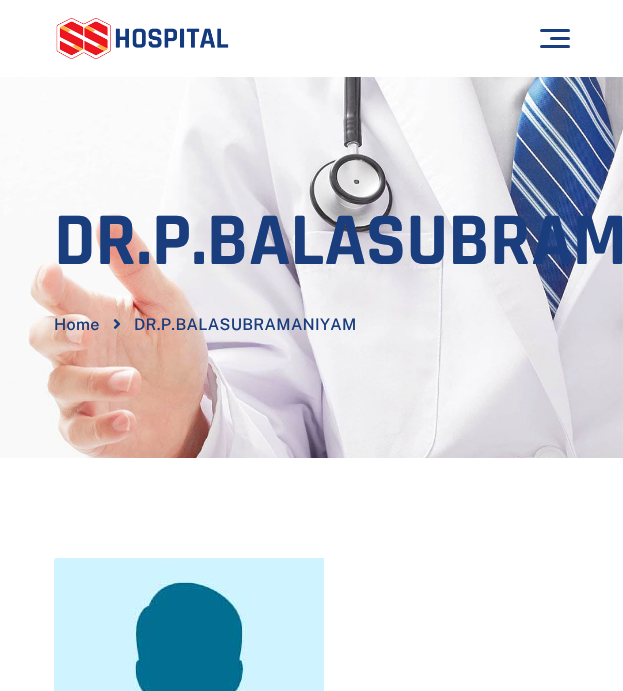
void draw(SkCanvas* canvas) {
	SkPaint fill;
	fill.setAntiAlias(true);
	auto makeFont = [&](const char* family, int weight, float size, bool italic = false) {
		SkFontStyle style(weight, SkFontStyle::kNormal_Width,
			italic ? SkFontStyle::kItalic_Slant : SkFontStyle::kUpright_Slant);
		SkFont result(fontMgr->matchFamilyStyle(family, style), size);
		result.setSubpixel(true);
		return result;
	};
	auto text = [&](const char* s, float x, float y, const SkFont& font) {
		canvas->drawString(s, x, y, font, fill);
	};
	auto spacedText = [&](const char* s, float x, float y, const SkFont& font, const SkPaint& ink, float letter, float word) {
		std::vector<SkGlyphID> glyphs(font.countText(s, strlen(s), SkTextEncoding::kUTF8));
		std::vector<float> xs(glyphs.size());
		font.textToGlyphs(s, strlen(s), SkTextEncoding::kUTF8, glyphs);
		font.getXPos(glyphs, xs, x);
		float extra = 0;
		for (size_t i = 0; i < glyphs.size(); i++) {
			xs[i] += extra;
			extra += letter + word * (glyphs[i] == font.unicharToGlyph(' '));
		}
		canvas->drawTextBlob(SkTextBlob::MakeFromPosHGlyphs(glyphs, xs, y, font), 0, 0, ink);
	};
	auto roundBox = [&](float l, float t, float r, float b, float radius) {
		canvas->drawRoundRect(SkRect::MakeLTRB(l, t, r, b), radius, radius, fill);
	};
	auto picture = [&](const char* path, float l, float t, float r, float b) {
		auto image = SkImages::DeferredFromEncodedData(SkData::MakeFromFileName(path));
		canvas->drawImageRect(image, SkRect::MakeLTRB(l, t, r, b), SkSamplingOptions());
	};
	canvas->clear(0xFFFFFFFF);
	picture("image0.png", 56, 18, 229, 59);
	fill.setColor(0xFF1A3D7D);
	roundBox(540, 29, 570, 32, 1.5f);
	roundBox(550, 37, 570, 40, 1.5f);
	roundBox(540, 45, 570, 48, 1.5f);
	picture("image1.png", 0, 77, 623, 458);
	picture("image2.png", 113, 319, 121, 329);
	picture("image3.png", 54, 558, 324, 691);
	auto font1 = makeFont("Rajdhani", 700, 75);
	text("DR.P.BALASUBRAM", 54, 264, font1);
	auto font2 = makeFont("Public Sans", 500, 16);
	spacedText("Home", 54, 330, font2, fill, 0.3f, 0);
	spacedText("DR.P.BALASUBRAMANIYAM", 134, 330, font2, fill, 0.3f, 0);
}
